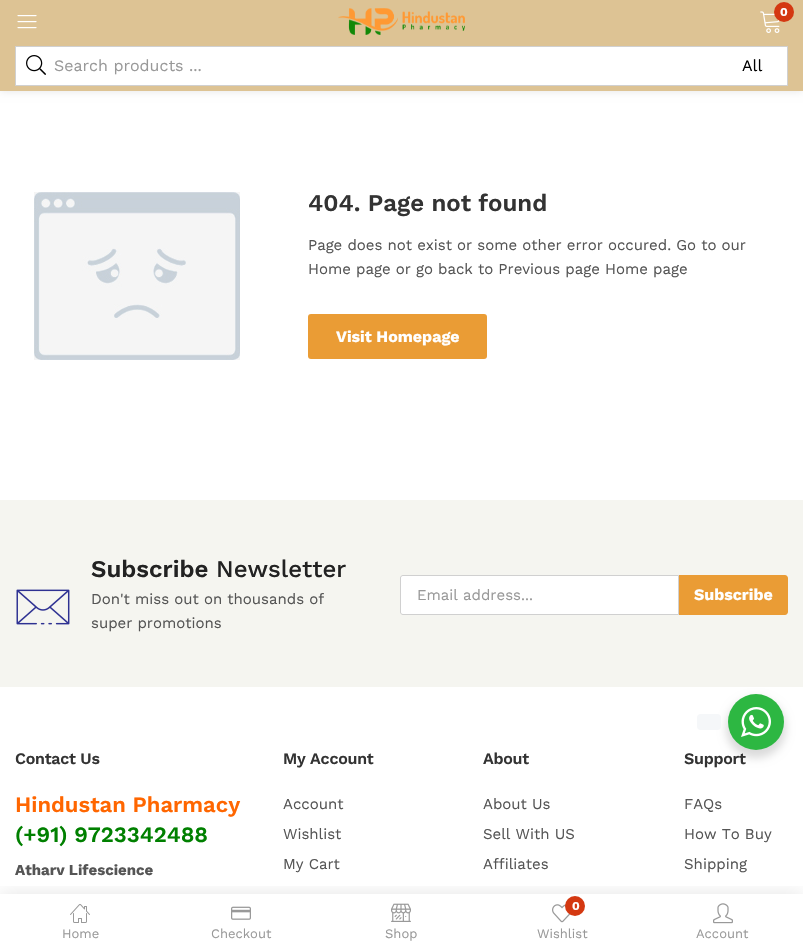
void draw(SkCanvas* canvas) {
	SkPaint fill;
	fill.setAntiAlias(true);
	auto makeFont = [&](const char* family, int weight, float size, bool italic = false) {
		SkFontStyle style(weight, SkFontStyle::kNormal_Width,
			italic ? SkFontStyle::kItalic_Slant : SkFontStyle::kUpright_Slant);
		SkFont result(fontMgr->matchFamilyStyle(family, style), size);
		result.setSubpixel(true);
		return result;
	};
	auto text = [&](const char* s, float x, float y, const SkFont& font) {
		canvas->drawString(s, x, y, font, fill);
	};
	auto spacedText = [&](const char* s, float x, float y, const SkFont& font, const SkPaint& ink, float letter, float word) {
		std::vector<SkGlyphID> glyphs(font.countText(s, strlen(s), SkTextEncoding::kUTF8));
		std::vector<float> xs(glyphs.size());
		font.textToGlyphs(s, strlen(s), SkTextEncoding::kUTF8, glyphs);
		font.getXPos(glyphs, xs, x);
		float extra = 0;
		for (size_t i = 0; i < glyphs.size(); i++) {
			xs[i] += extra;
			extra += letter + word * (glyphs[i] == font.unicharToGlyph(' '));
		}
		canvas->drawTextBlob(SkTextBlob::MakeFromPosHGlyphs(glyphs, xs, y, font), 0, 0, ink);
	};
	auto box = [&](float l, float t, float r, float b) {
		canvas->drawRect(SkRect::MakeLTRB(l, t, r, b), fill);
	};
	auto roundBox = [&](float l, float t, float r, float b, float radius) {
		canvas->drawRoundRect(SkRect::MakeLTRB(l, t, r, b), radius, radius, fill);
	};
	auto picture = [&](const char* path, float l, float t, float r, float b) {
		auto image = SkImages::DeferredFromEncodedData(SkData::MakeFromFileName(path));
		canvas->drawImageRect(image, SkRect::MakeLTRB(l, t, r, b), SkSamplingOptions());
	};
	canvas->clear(0xFFFFFFFF);
	fill.setColor(0x1A000000);
	fill.setMaskFilter(SkMaskFilter::MakeBlur(kNormal_SkBlurStyle, 4));
	canvas->drawRect(SkRect::MakeLTRB(0, 0, 803, 91), fill);
	fill.setMaskFilter(nullptr);
	fill.setColor(0xFFDDC394);
	box(0, 0, 803, 91);
	picture("image0.png", 17, 15, 37, 29);
	picture("image1.png", 338, 8, 465, 35);
	picture("image2.png", 760, 11, 780, 33);
	fill.setColor(0xFFD43811);
	canvas->drawCircle(784, 12, 10, fill);
	fill.setColor(0xFFFFFFFF);
	canvas->drawRect(SkRect::MakeLTRB(15.5f, 46.5f, 787.5f, 85.5f), fill);
	fill.setStyle(SkPaint::kStroke_Style);
	fill.setStrokeWidth(1);
	fill.setColor(0xFFD0D0D0);
	canvas->drawRect(SkRect::MakeLTRB(15.5f, 46.5f, 787.5f, 85.5f), fill);
	picture("image3.png", 26, 55, 46, 75);
	picture("image4.png", 34, 192, 240, 360);
	fill.setStyle(SkPaint::kFill_Style);
	fill.setColor(0xFFEA9C35);
	roundBox(308, 314, 487, 359, 3);
	fill.setColor(0xFFF5F5F0);
	box(0, 500, 803, 687);
	picture("image5.png", 16, 589, 70, 625);
	fill.setColor(0xFFFFFFFF);
	canvas->drawPath(SkPathBuilder().moveTo(403, 575.5f).lineTo(678.5f, 575.5f).lineTo(678.5f, 614.5f).lineTo(403, 614.5f).cubicTo(401.5f, 614.5f, 400.5f, 613.5f, 400.5f, 612).lineTo(400.5f, 578).cubicTo(400.5f, 576.5f, 401.5f, 575.5f, 403, 575.5f).close().detach(), fill);
	fill.setStyle(SkPaint::kStroke_Style);
	fill.setColor(0xFFD0D0D0);
	canvas->drawPath(SkPathBuilder().moveTo(403, 575.5f).lineTo(678.5f, 575.5f).lineTo(678.5f, 614.5f).lineTo(403, 614.5f).cubicTo(401.5f, 614.5f, 400.5f, 613.5f, 400.5f, 612).lineTo(400.5f, 578).cubicTo(400.5f, 576.5f, 401.5f, 575.5f, 403, 575.5f).close().detach(), fill);
	fill.setStyle(SkPaint::kFill_Style);
	fill.setColor(0xFFEA9C35);
	canvas->drawPath(SkPathBuilder().moveTo(679, 575).lineTo(785, 575).cubicTo(786.5f, 575, 788, 576.5f, 788, 578).lineTo(788, 612).cubicTo(788, 613.5f, 786.5f, 615, 785, 615).lineTo(679, 615).close().detach(), fill);
	canvas->save();
	canvas->clipRect(SkRect::MakeLTRB(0, 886, 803, 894));
	fill.setColor(0x1A000000);
	fill.setMaskFilter(SkMaskFilter::MakeBlur(kNormal_SkBlurStyle, 10));
	canvas->drawRect(SkRect::MakeLTRB(0, 894, 803, 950), fill);
	fill.setMaskFilter(nullptr);
	canvas->restore();
	picture("image6.png", 70, 904, 90, 923);
	picture("image7.png", 231, 906, 251, 920);
	picture("image8.png", 391, 903, 411, 922);
	picture("image9.png", 552, 904, 571, 923);
	fill.setColor(0xFFD43811);
	canvas->drawCircle(575, 906, 10, fill);
	picture("image10.png", 713, 903, 733, 924);
	fill.setColor(0x24000000);
	fill.setMaskFilter(SkMaskFilter::MakeBlur(kNormal_SkBlurStyle, 4));
	canvas->drawRoundRect(SkRect::MakeLTRB(726, 698, 786, 758), 30, 30, fill);
	fill.setMaskFilter(nullptr);
	fill.setColor(0xFFF5F7F9);
	roundBox(697, 714, 721, 730, 4);
	fill.setColor(0xFF2DB742);
	canvas->drawCircle(756, 722, 28, fill);
	picture("image11.png", 741, 707, 771, 737);
	auto font1 = makeFont("Work Sans", 700, 12);
	fill.setColor(0xFFFFFFFF);
	text("0", 780, 16, font1);
	auto font2 = makeFont("Work Sans", 400, 16);
	fill.setColor(0xFF999999);
	text("Search products ...", 54, 71, font2);
	fill.setColor(0xFF000000);
	text("All", 742, 71, font2);
	auto font3 = makeFont("Work Sans", 600, 24);
	fill.setColor(0xFF333333);
	text("404. Page not found", 308, 211, font3);
	auto font4 = makeFont("Work Sans", 400, 15);
	fill.setColor(0xFF555555);
	text("Page does not exist or some other error occured. Go to our", 308, 250, font4);
	text("Home page or go back to Previous page Home page", 308, 274, font4);
	auto font5 = makeFont("Work Sans", 700, 16);
	fill.setColor(0xFFFFFFFF);
	text("Visit Homepage", 336, 342, font5);
	fill.setColor(0xFF222222);
	text("Subscribe", 91, 577, font3);
	auto font6 = makeFont("Work Sans", 500, 24);
	text("Newsletter", 216, 577, font6);
	fill.setColor(0xFF555555);
	text("Don't miss out on thousands of", 91, 604, font4);
	text("super promotions", 91, 628, font4);
	fill.setColor(0xFF999999);
	text("Email address...", 417, 600, font4);
	fill.setColor(0xFFFFFFFF);
	text("Subscribe", 694, 600, font5);
	auto font7 = makeFont("Work Sans", 600, 16);
	fill.setColor(0xFF333333);
	spacedText("Contact Us", 15, 764, font7, fill, -0.25f, 0);
	auto font8 = makeFont("Work Sans", 600, 22);
	fill.setColor(0xFFFF6600);
	text("Hindustan Pharmacy", 15, 812, font8);
	fill.setColor(0xFF008000);
	text("(+91) 9723342488", 15, 842, font8);
	auto font9 = makeFont("Work Sans", 700, 15);
	fill.setColor(0xFF555555);
	text("Atharv Lifescience", 15, 875, font9);
	fill.setColor(0xFF333333);
	spacedText("My Account", 283, 764, font7, fill, -0.25f, 0);
	fill.setColor(0xFF555555);
	text("Account", 283, 809, font4);
	text("Wishlist", 283, 839, font4);
	text("My Cart", 283, 869, font4);
	fill.setColor(0xFF333333);
	spacedText("About", 483, 764, font7, fill, -0.25f, 0);
	fill.setColor(0xFF555555);
	text("About Us", 483, 809, font4);
	text("Sell With US", 483, 839, font4);
	text("Affiliates", 483, 869, font4);
	fill.setColor(0xFF333333);
	spacedText("Support", 684, 764, font7, fill, -0.25f, 0);
	fill.setColor(0xFF555555);
	text("FAQs", 684, 809, font4);
	text("How To Buy", 684, 839, font4);
	text("Shipping", 684, 869, font4);
	auto font10 = makeFont("Work Sans", 400, 13);
	fill.setColor(0xFF999999);
	text("Home", 62, 938, font10);
	text("Checkout", 211, 938, font10);
	text("Shop", 385, 938, font10);
	fill.setColor(0xFFFFFFFF);
	text("0", 572, 910, font1);
	fill.setColor(0xFF999999);
	text("Wishlist", 537, 938, font10);
	text("Account", 696, 938, font10);
}
